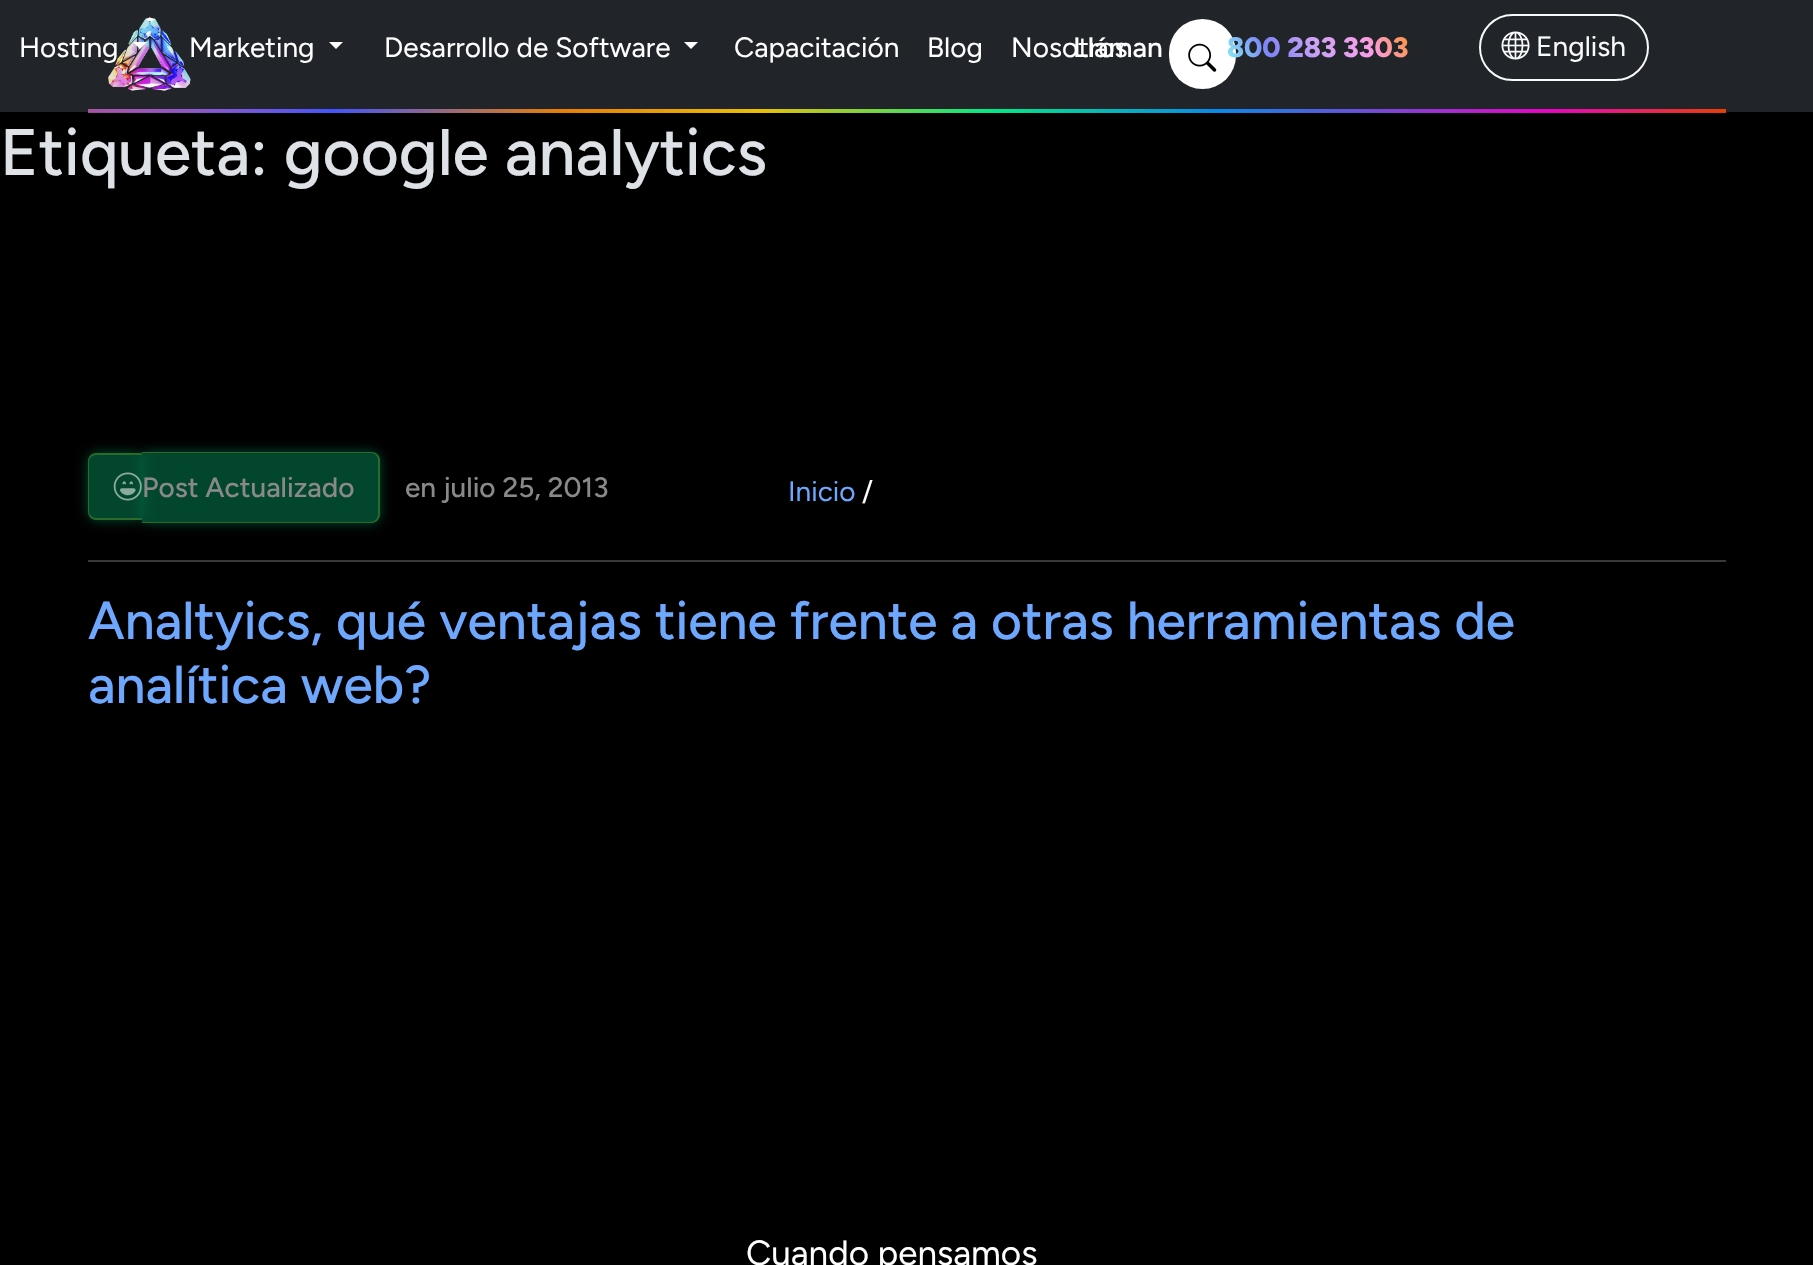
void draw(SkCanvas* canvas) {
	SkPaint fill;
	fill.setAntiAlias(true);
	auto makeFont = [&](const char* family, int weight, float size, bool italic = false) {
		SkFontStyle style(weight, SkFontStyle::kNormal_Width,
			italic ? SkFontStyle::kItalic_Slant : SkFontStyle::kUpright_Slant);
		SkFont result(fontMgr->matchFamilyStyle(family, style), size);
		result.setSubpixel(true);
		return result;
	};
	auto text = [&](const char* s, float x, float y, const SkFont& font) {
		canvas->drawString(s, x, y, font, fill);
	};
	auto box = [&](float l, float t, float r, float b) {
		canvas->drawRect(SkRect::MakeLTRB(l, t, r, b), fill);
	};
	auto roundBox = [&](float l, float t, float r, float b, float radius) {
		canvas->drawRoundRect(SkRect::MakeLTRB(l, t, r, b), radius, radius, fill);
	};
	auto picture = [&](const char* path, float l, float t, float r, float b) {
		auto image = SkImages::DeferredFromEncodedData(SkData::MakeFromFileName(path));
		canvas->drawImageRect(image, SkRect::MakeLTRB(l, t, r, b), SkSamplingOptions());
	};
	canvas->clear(0xFF000000);
	fill.setColor(0xFF212529);
	box(0, 0, 1813, 112);
	picture("image0.png", 108, 17, 191, 91);
	fill.setStyle(SkPaint::kStroke_Style);
	fill.setStrokeWidth(2);
	fill.setColor(0xFFF8F9FA);
	canvas->drawRoundRect(SkRect::MakeLTRB(1480, 15, 1648, 80), 32.5f, 32.5f, fill);
	picture("image1.png", 1501, 31, 1530, 60);
	fill.setStyle(SkPaint::kFill_Style);
	fill.setColor(0xFFFFFFFF);
	canvas->drawPath(SkPathBuilder().moveTo(133, 42).lineTo(147, 42).lineTo(140, 49).close().detach(), fill);
	canvas->drawPath(SkPathBuilder().moveTo(329, 42).lineTo(343, 42).lineTo(336, 49).close().detach(), fill);
	canvas->drawPath(SkPathBuilder().moveTo(684, 42).lineTo(698, 42).lineTo(691, 49).close().detach(), fill);
	roundBox(1169, 19, 1236, 89, 33.5f);
	picture("image2.png", 1188, 43, 1217, 72);
	{
		const SkColor colors[] = {0x99FF76F3, 0xFF4154FF, 0xE6FF8800, 0xE6FFD100, 0xE600FF8D, 0xE60695FF, 0xE6FF00D7, 0xE6FF4000};
		const float stops[] = {0, 0.15f, 0.29f, 0.41f, 0.55f, 0.69f, 0.89f, 1};
		const SkPoint ends[] = {{88, 110}, {1726, 110}};
		fill.setShader(SkGradientShader::MakeLinear(ends, colors, stops, 8, SkTileMode::kClamp));
		fill.setAlpha(255);
	}
	box(88, 109, 1726, 113);
	canvas->save();
	canvas->clipPath(SkPathBuilder(SkPathFillType::kEvenOdd).moveTo(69, 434).lineTo(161, 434).lineTo(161, 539).lineTo(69, 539).close().moveTo(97, 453).lineTo(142, 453).lineTo(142, 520).lineTo(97, 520).cubicTo(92, 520, 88, 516, 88, 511).lineTo(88, 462).cubicTo(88, 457, 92, 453, 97, 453).close().detach(), true);
	fill.setShader(nullptr);
	fill.setColor(0xB5036D47);
	fill.setMaskFilter(SkMaskFilter::MakeBlur(kNormal_SkBlurStyle, 6));
	canvas->drawRoundRect(SkRect::MakeLTRB(88, 453, 142, 520), 9, 9, fill);
	fill.setMaskFilter(nullptr);
	canvas->restore();
	fill.setColor(0xA3036D47);
	canvas->drawPath(SkPathBuilder().moveTo(97, 453).lineTo(142, 453).lineTo(142, 520).lineTo(97, 520).cubicTo(92, 520, 88, 516, 88, 511).lineTo(88, 462).cubicTo(88, 457, 92, 453, 97, 453).close().detach(), fill);
	fill.setColor(0xFF2A6B27);
	canvas->drawPath(SkPathBuilder(SkPathFillType::kEvenOdd).moveTo(96, 453).lineTo(142, 453).lineTo(142, 520).lineTo(96, 520).cubicTo(91, 520, 88, 516, 88, 511).lineTo(88, 462).cubicTo(88, 457, 91, 453, 96, 453).close().moveTo(96, 455).lineTo(142, 455).lineTo(142, 518).lineTo(96, 518).cubicTo(92, 518, 89, 515, 89, 511).lineTo(89, 462).cubicTo(89, 458, 92, 455, 96, 455).close().detach(), fill);
	canvas->save();
	canvas->clipPath(SkPathBuilder(SkPathFillType::kEvenOdd).moveTo(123, 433).lineTo(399, 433).lineTo(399, 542).lineTo(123, 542).close().moveTo(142, 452).lineTo(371, 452).cubicTo(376, 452, 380, 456, 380, 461).lineTo(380, 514).cubicTo(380, 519, 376, 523, 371, 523).lineTo(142, 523).close().detach(), true);
	fill.setColor(0xB5036D47);
	fill.setMaskFilter(SkMaskFilter::MakeBlur(kNormal_SkBlurStyle, 6));
	canvas->drawRoundRect(SkRect::MakeLTRB(142, 452, 380, 523), 9, 9, fill);
	fill.setMaskFilter(nullptr);
	canvas->restore();
	fill.setColor(0xA3036D47);
	canvas->drawPath(SkPathBuilder().moveTo(142, 452).lineTo(371, 452).cubicTo(376, 452, 380, 456, 380, 461).lineTo(380, 514).cubicTo(380, 519, 376, 523, 371, 523).lineTo(142, 523).close().detach(), fill);
	fill.setColor(0xFF2A6B27);
	canvas->drawPath(SkPathBuilder(SkPathFillType::kEvenOdd).moveTo(142, 452).lineTo(371, 452).cubicTo(376, 452, 380, 455, 380, 460).lineTo(380, 514).cubicTo(380, 519, 376, 523, 371, 523).lineTo(142, 523).close().moveTo(142, 453).lineTo(371, 453).cubicTo(375, 453, 378, 456, 378, 460).lineTo(378, 514).cubicTo(378, 518, 375, 522, 371, 522).lineTo(142, 522).close().detach(), fill);
	picture("image3.png", 113, 472, 142, 501);
	fill.setColor(0xFF38393A);
	box(88, 560, 1726, 562);
	auto font1 = makeFont("Figtree", 400, 28);
	fill.setColor(0xFFF8F9FA);
	text("English", 1536, 56, font1);
	fill.setColor(0xFFFFFFFF);
	text("Hosting", 19, 57, font1);
	text("Marketing", 189, 57, font1);
	text("Desarrollo de Software", 384, 57, font1);
	text("Capacitación", 734, 57, font1);
	text("Blog", 927, 57, font1);
	auto font2 = makeFont("Figtree", 500, 28);
	text("Lláman", 1073, 57, font2);
	text("Nosotros", 1011, 57, font1);
	auto font3 = makeFont("Figtree", 800, 28);
	{
		const SkColor colors[] = {0xFF87F2F2, 0xFF7D84F8, 0xFFCFA3F6, 0xFFFA9DEA, 0xFFFF9330};
		const float stops[] = {0, 0.25f, 0.5f, 0.75f, 1};
		const SkPoint ends[] = {{1242, 91}, {1393, 3.8f}};
		fill.setShader(SkGradientShader::MakeLinear(ends, colors, stops, 5, SkTileMode::kClamp));
		fill.setAlpha(255);
	}
	text("800 283 3303", 1227, 57, font3);
	auto font4 = makeFont("Figtree", 500, 65.75f);
	fill.setShader(nullptr);
	fill.setColor(0xFFDEE2E6);
	text("Etiqueta: google analytics", 0, 175, font4);
	fill.setColor(0xFF898989);
	text("Post Actualizado", 142, 497, font2);
	text("en julio 25, 2013", 405, 497, font2);
	fill.setColor(0xFF6EA8FE);
	text("Inicio", 788, 501, font1);
	fill.setColor(0xFFFFFFFF);
	text("/", 862, 501, font1);
	auto font5 = makeFont("Figtree", 500, 53.4f);
	fill.setColor(0xFF6EA8FE);
	text("Analtyics, qué ventajas tiene frente a otras herramientas de", 88, 639, font5);
	text("analítica web?", 88, 703, font5);
	auto font6 = makeFont("Figtree", 400, 35);
	fill.setColor(0xFFFFFFFF);
	text("Cuando pensamos", 746, 1265, font6);
}
